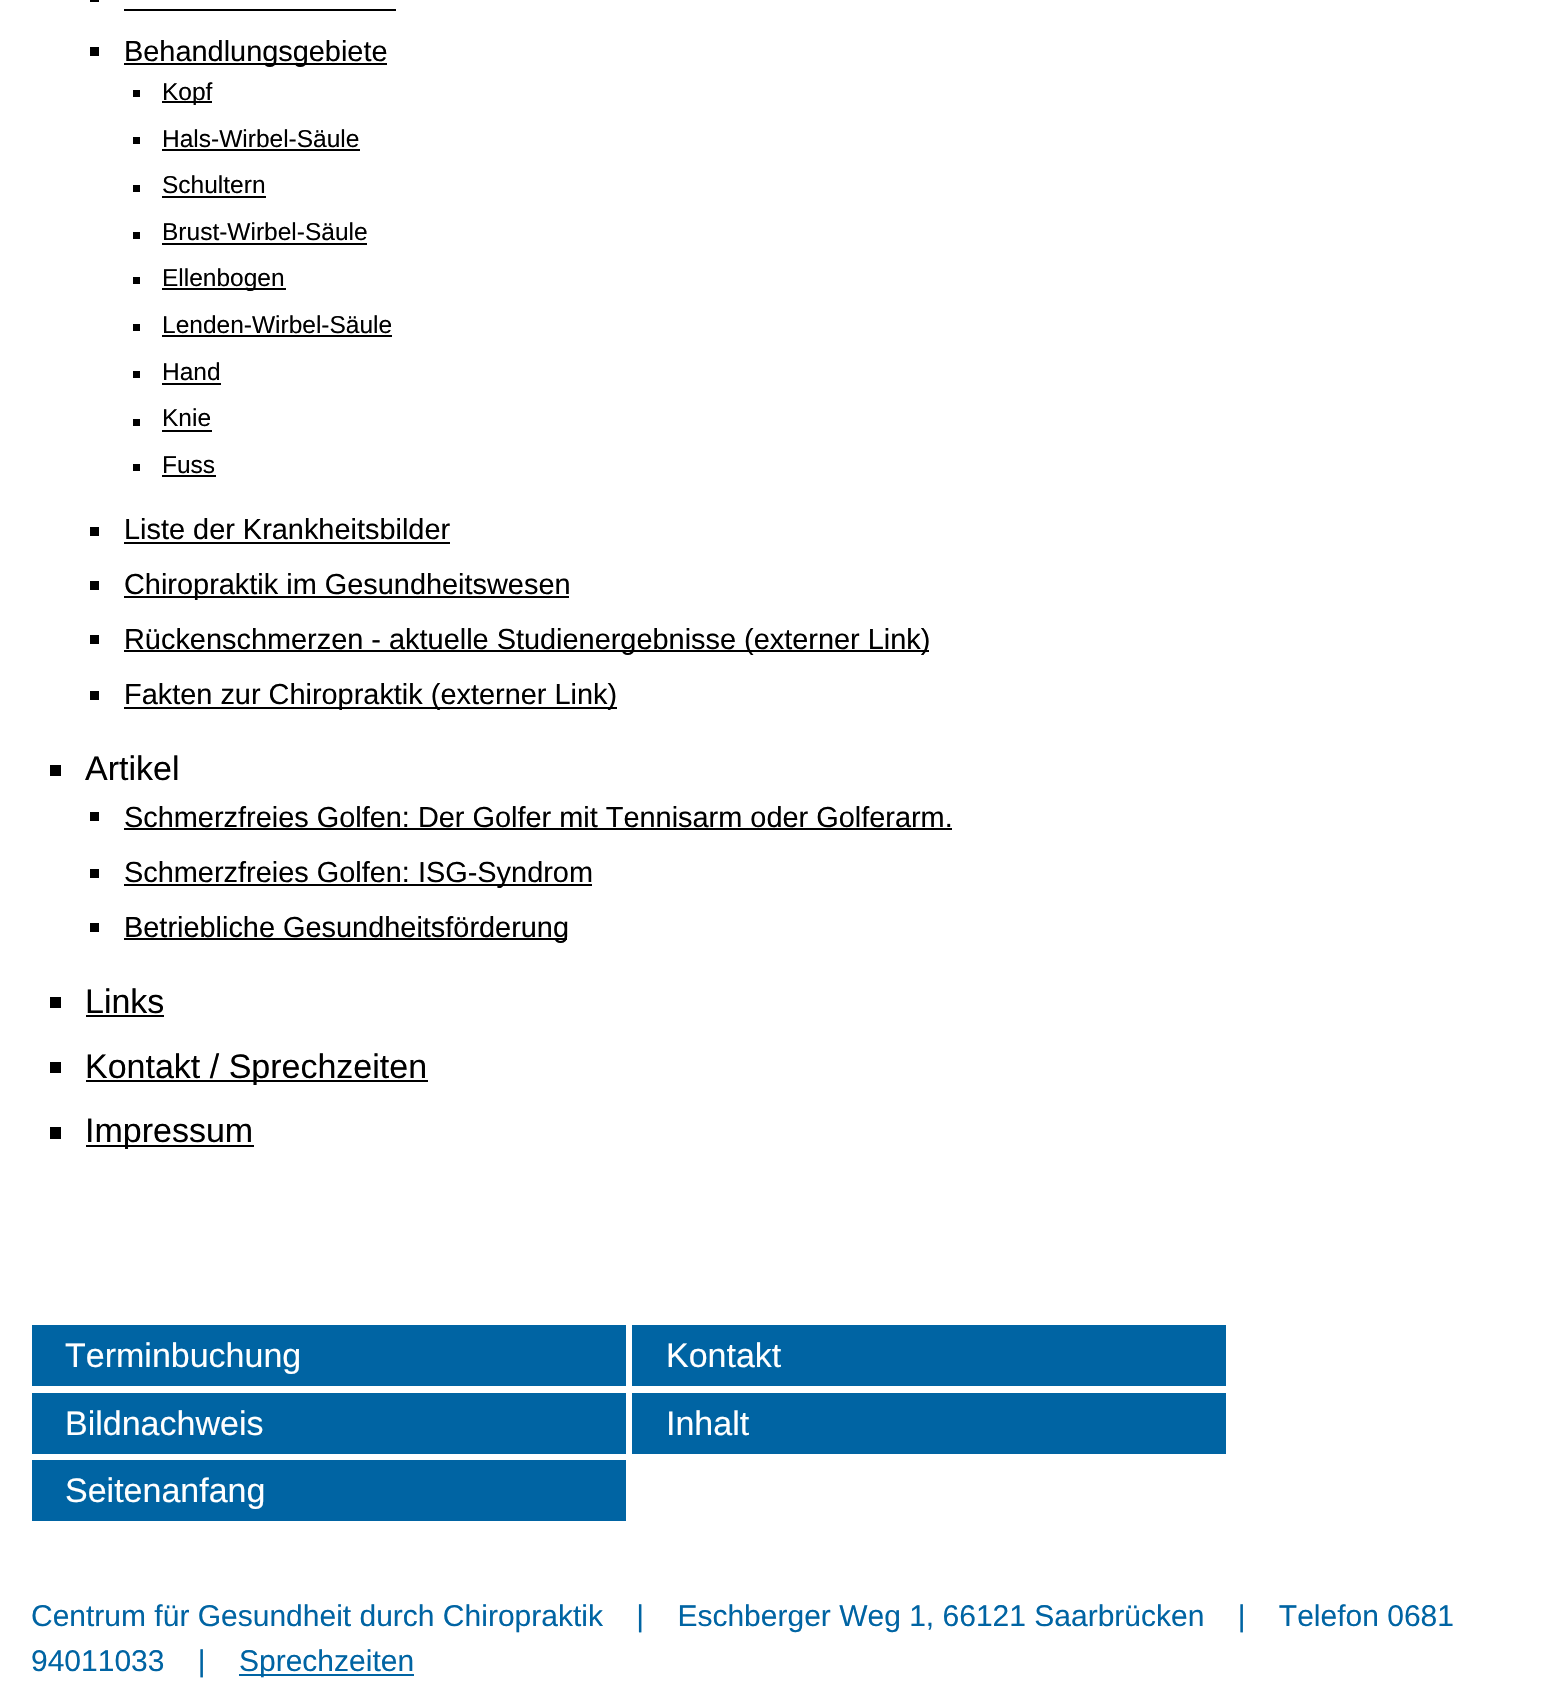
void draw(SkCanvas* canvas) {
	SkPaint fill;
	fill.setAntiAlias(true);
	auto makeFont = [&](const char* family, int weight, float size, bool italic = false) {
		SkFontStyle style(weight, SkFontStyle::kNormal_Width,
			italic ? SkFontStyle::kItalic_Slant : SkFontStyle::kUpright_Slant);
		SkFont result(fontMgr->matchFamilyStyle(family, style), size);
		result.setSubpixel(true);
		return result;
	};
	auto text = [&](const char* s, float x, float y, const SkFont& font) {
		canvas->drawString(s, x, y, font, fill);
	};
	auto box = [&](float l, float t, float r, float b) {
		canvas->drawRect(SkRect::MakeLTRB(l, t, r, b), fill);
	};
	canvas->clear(0xFFFFFFFF);
	fill.setColor(0xFF000000);
	box(90, 0, 99, 2);
	box(124, 9, 396, 11);
	box(90, 47, 99, 56);
	box(124, 63, 387, 65);
	box(133, 90, 140, 97);
	box(162, 101, 212, 103);
	box(133, 137, 140, 144);
	box(162, 149, 360, 151);
	box(133, 185, 140, 192);
	box(162, 196, 266, 198);
	box(133, 232, 140, 239);
	box(162, 243, 367, 245);
	box(133, 277, 140, 284);
	box(162, 288, 286, 290);
	box(133, 324, 140, 331);
	box(162, 335, 392, 337);
	box(133, 371, 140, 378);
	box(162, 383, 221, 385);
	box(133, 419, 140, 426);
	box(162, 430, 212, 432);
	box(133, 464, 140, 471);
	box(162, 475, 216, 477);
	box(90, 527, 99, 536);
	box(124, 542, 450, 544);
	box(90, 581, 99, 590);
	box(124, 596, 569, 598);
	box(90, 635, 99, 644);
	box(124, 650, 929, 652);
	box(90, 691, 99, 700);
	box(124, 707, 617, 709);
	box(50, 765, 61, 776);
	box(90, 812, 99, 821);
	box(124, 828, 952, 830);
	box(90, 869, 99, 878);
	box(124, 884, 592, 886);
	box(90, 923, 99, 932);
	box(124, 938, 567, 940);
	box(50, 997, 61, 1008);
	box(86, 1015, 164, 1017);
	box(50, 1062, 61, 1073);
	box(86, 1080, 428, 1082);
	box(50, 1127, 61, 1139);
	box(86, 1145, 254, 1147);
	fill.setColor(0xFF0064A3);
	box(32, 1325, 626, 1386);
	box(632, 1325, 1226, 1386);
	box(32, 1393, 626, 1454);
	box(632, 1393, 1226, 1454);
	box(32, 1460, 626, 1521);
	box(239, 1674, 414, 1676);
	auto font1 = makeFont("Liberation Sans", 400, 28.9f);
	fill.setColor(0xFF000000);
	text("Behandlungsgebiete", 124, 61, font1);
	auto font2 = makeFont("Liberation Sans", 400, 24.5f);
	text("Kopf", 162, 100, font2);
	text("Hals-Wirbel-Säule", 162, 147, font2);
	text("Schultern", 162, 193, font2);
	text("Brust-Wirbel-Säule", 162, 240, font2);
	text("Ellenbogen", 162, 286, font2);
	text("Lenden-Wirbel-Säule", 162, 333, font2);
	text("Hand", 162, 380, font2);
	text("Knie", 162, 426, font2);
	text("Fuss", 162, 473, font2);
	text("Liste der Krankheitsbilder", 124, 539, font1);
	text("Chiropraktik im Gesundheitswesen", 124, 594, font1);
	text("Rückenschmerzen - aktuelle Studienergebnisse (externer Link)", 124, 649, font1);
	text("Fakten zur Chiropraktik (externer Link)", 124, 704, font1);
	auto font3 = makeFont("Liberation Sans", 400, 34);
	text("Artikel", 85, 780, font3);
	text("Schmerzfreies Golfen: Der Golfer mit Tennisarm oder Golferarm.", 124, 827, font1);
	text("Schmerzfreies Golfen: ISG-Syndrom", 124, 882, font1);
	text("Betriebliche Gesundheitsförderung", 124, 937, font1);
	text("Links", 85, 1013, font3);
	text("Kontakt / Sprechzeiten", 85, 1078, font3);
	text("Impressum", 85, 1142, font3);
	fill.setColor(0xFFFFFFFF);
	text("Terminbuchung", 65, 1367, font3);
	text("Kontakt", 666, 1367, font3);
	text("Bildnachweis", 65, 1435, font3);
	text("Inhalt", 666, 1435, font3);
	text("Seitenanfang", 65, 1502, font3);
	auto font4 = makeFont("Liberation Sans", 400, 30);
	fill.setColor(0xFF0064A3);
	text("Centrum für Gesundheit durch Chiropraktik    |    Eschberger Weg 1, 66121 Saarbrücken    |    Telefon 0681", 31, 1626, font4);
	text("94011033    |", 31, 1671, font4);
	text("Sprechzeiten", 239, 1671, font4);
}
